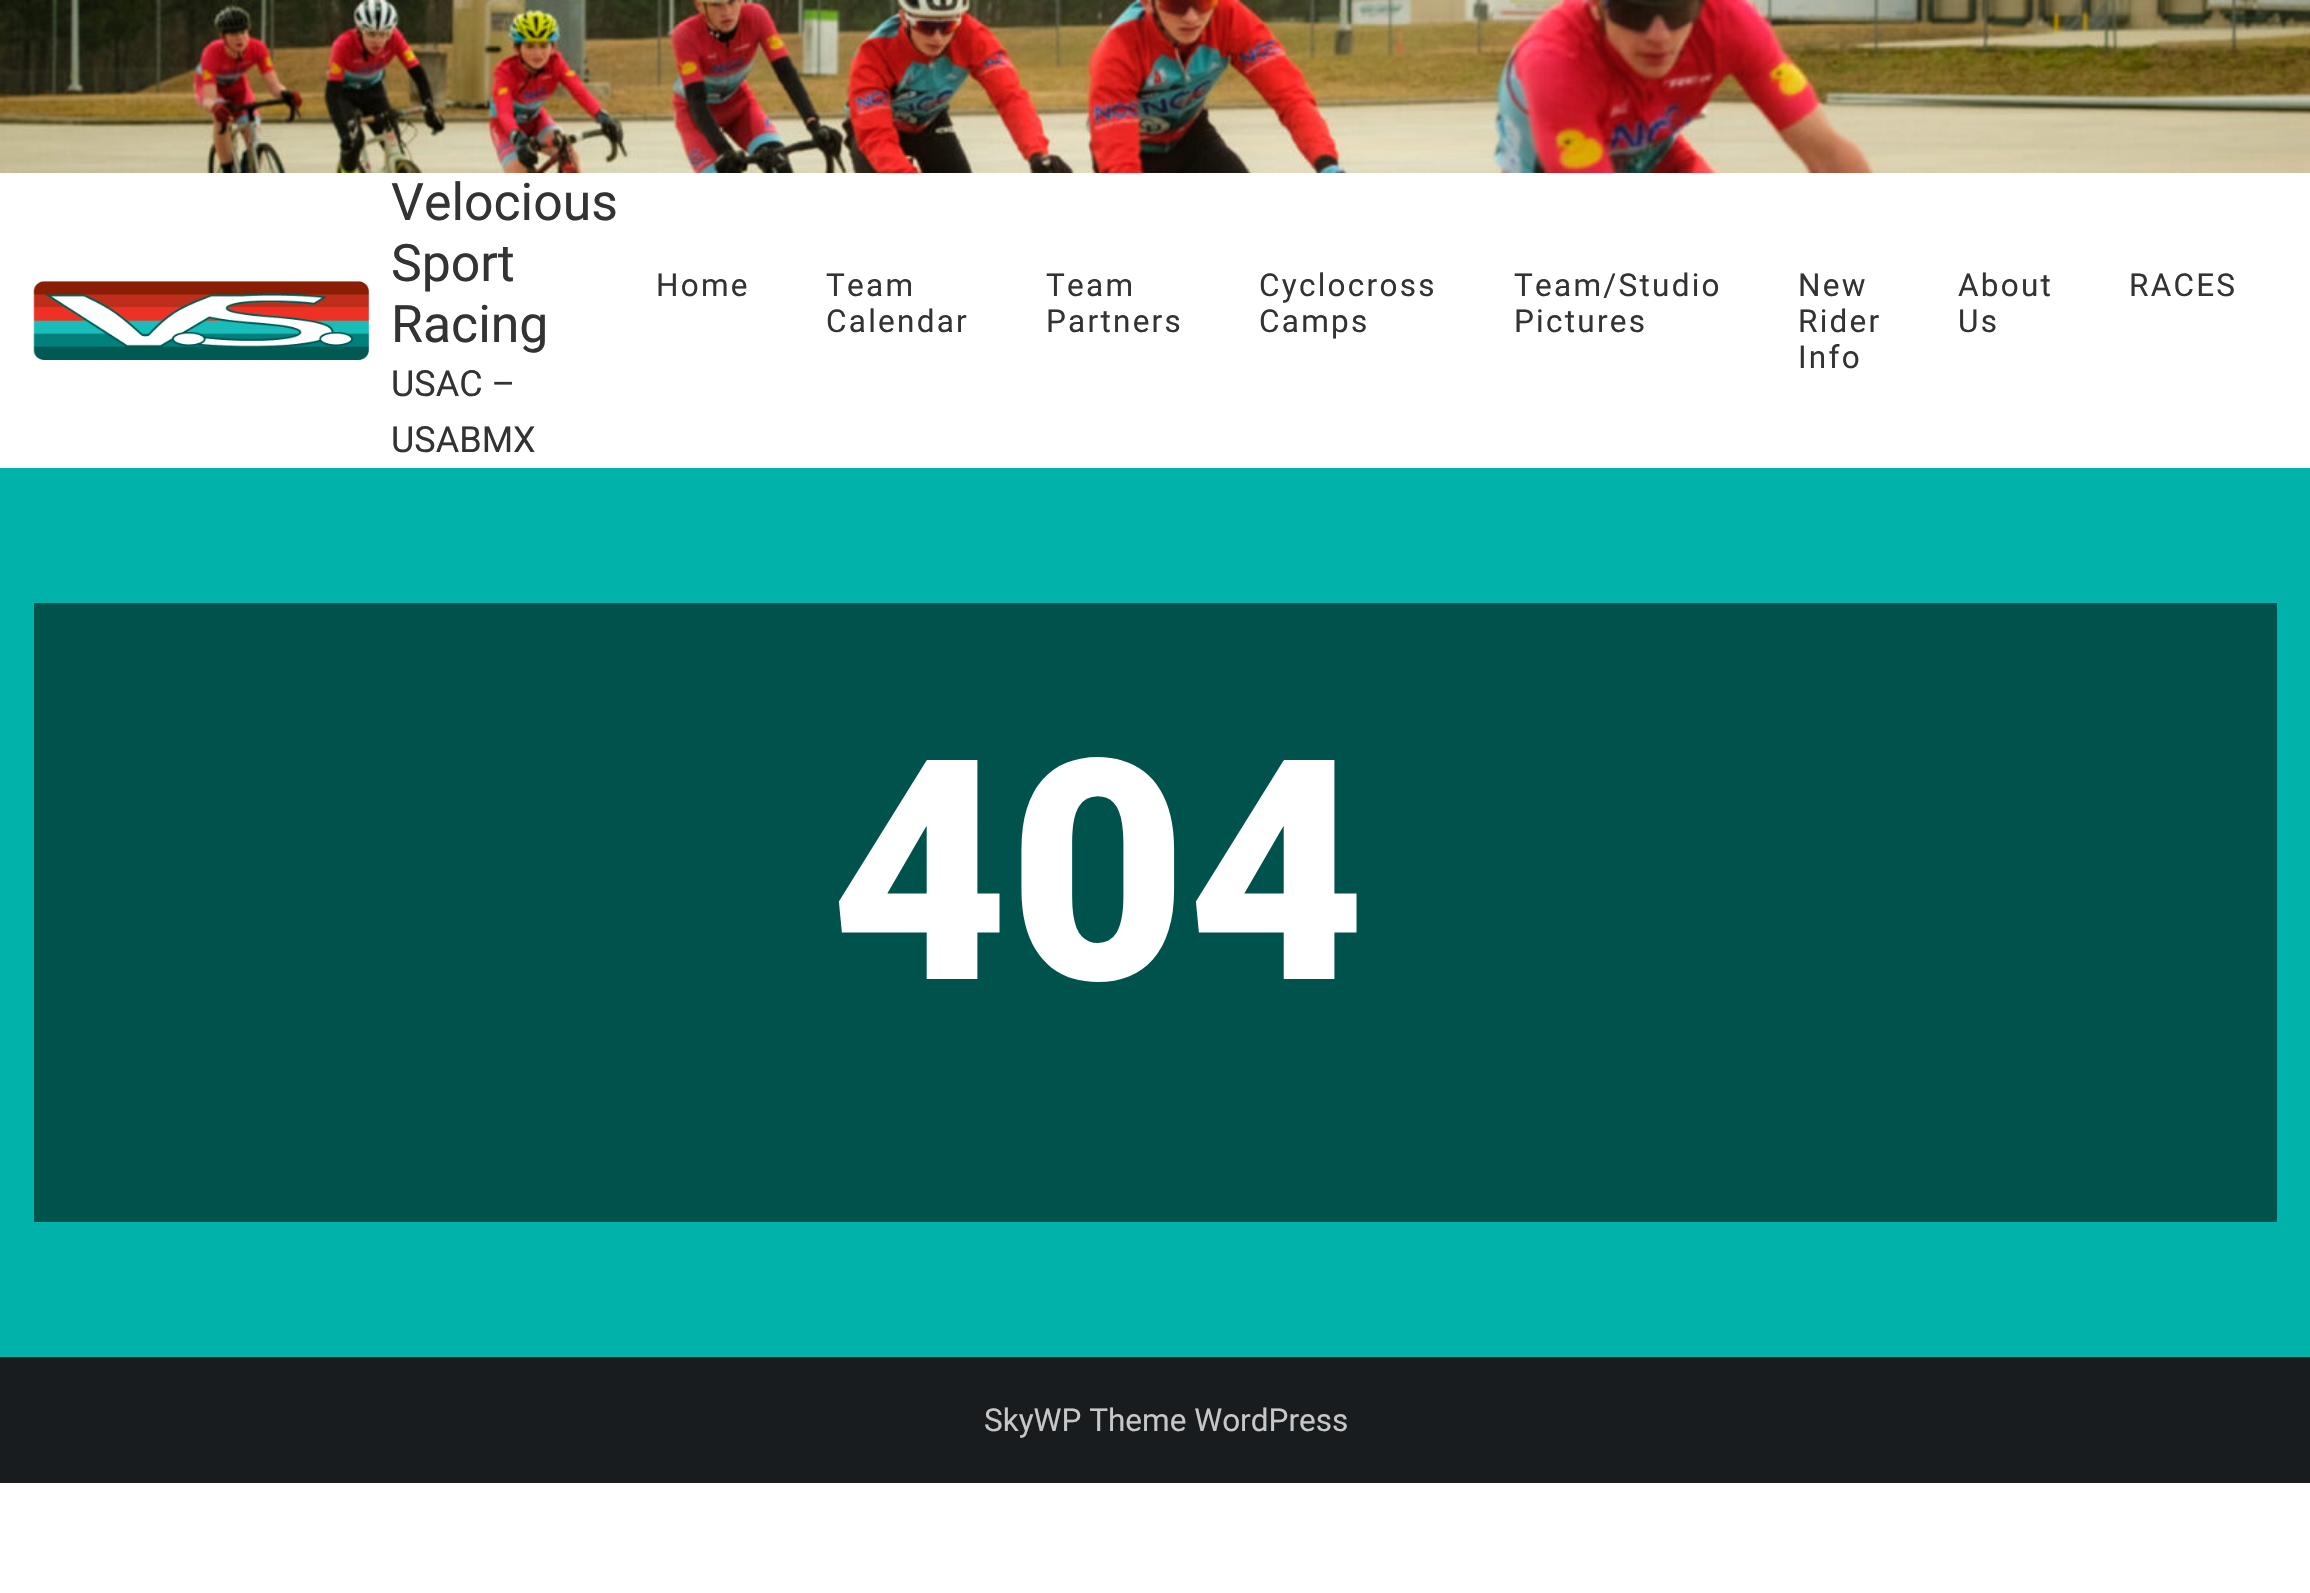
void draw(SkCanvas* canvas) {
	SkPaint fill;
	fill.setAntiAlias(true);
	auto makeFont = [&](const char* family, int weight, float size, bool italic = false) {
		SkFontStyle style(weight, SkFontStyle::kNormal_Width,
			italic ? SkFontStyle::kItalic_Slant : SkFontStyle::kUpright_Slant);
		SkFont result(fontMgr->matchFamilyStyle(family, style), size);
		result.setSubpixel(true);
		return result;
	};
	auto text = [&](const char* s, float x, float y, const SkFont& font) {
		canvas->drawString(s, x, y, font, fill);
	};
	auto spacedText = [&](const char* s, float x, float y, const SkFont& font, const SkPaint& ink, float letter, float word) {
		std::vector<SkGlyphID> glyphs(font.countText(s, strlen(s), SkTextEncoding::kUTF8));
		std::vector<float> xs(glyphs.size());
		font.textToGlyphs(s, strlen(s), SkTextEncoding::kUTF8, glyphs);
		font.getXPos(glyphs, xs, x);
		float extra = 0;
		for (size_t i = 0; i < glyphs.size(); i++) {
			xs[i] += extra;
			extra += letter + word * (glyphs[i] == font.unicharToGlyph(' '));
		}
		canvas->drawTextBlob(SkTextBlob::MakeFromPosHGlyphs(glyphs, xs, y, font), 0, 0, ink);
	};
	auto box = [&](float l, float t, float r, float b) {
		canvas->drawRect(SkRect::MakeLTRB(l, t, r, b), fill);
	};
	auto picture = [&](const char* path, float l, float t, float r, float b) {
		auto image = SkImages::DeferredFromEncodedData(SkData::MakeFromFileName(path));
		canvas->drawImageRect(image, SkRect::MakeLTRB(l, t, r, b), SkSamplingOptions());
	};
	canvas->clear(0xFFFFFFFF);
	fill.setColor(0xFF00B2A9);
	box(0, 468, 2310, 1357);
	picture("image0.png", 0, 0, 2310, 173);
	picture("image1.png", 33, 281, 369, 360);
	fill.setColor(0xFF00534C);
	box(34, 603, 2277, 1222);
	fill.setColor(0xFF191C1E);
	box(0, 1357, 2310, 1483);
	auto font1 = makeFont("Roboto", 400, 51.75f);
	fill.setColor(0xFF333333);
	text("Velocious", 391, 220, font1);
	text("Sport", 391, 281, font1);
	text("Racing", 391, 342, font1);
	auto font2 = makeFont("Roboto", 400, 36);
	text("USAC –", 391, 396, font2);
	text("USABMX", 391, 452, font2);
	auto font3 = makeFont("Roboto", 400, 31.5f);
	spacedText("Home", 656, 296, font3, fill, 2.25f, 0);
	spacedText("Team", 826, 296, font3, fill, 2.25f, 0);
	spacedText("Calendar", 826, 332, font3, fill, 2.25f, 0);
	spacedText("Team", 1046, 296, font3, fill, 2.25f, 0);
	spacedText("Partners", 1046, 332, font3, fill, 2.25f, 0);
	spacedText("Cyclocross", 1259, 296, font3, fill, 2.25f, 0);
	spacedText("Camps", 1259, 332, font3, fill, 2.25f, 0);
	spacedText("Team/Studio", 1514, 296, font3, fill, 2.25f, 0);
	spacedText("Pictures", 1514, 332, font3, fill, 2.25f, 0);
	spacedText("New", 1798, 296, font3, fill, 2.25f, 0);
	spacedText("Rider", 1798, 332, font3, fill, 2.25f, 0);
	spacedText("Info", 1798, 368, font3, fill, 2.25f, 0);
	spacedText("About", 1958, 296, font3, fill, 2.25f, 0);
	spacedText("Us", 1958, 332, font3, fill, 2.25f, 0);
	spacedText("RACES", 2129, 296, font3, fill, 2.25f, 0);
	auto font4 = makeFont("Roboto", 900, 308);
	fill.setColor(0xFFFFFFFF);
	text("404", 830, 979, font4);
	fill.setColor(0xFFC7C7C7);
	text("SkyWP Theme WordPress", 984, 1431, font3);
}
